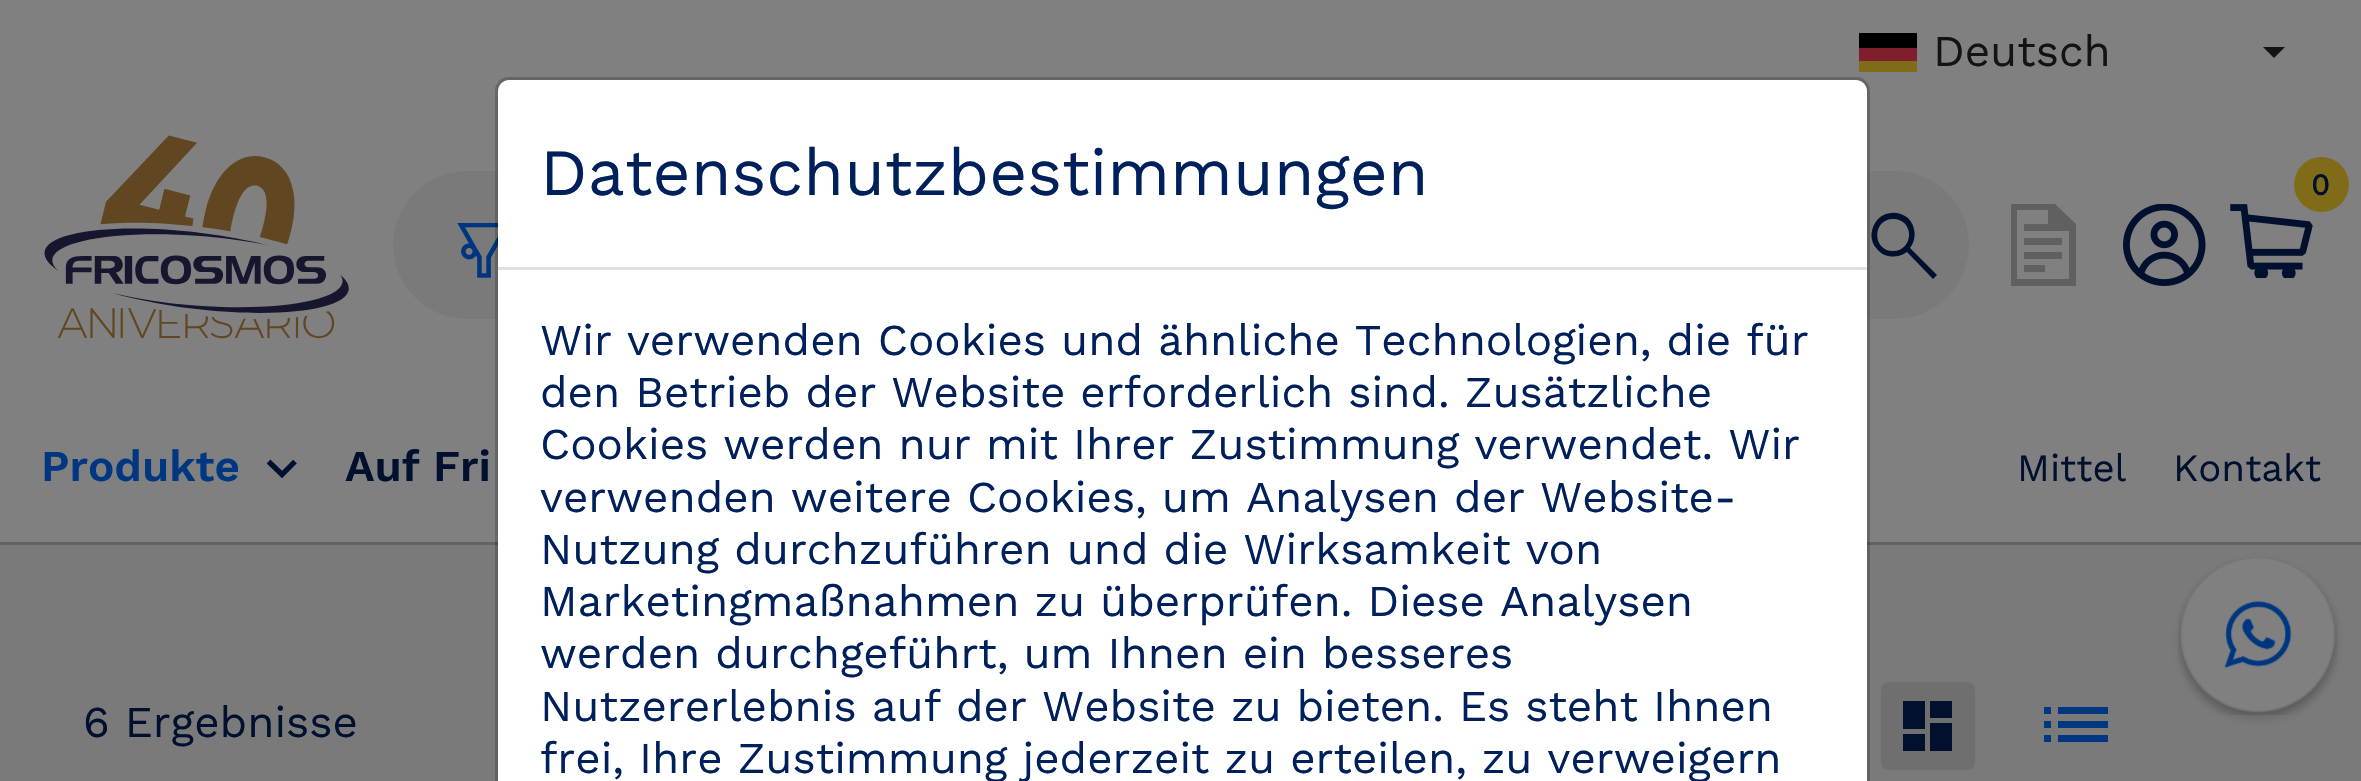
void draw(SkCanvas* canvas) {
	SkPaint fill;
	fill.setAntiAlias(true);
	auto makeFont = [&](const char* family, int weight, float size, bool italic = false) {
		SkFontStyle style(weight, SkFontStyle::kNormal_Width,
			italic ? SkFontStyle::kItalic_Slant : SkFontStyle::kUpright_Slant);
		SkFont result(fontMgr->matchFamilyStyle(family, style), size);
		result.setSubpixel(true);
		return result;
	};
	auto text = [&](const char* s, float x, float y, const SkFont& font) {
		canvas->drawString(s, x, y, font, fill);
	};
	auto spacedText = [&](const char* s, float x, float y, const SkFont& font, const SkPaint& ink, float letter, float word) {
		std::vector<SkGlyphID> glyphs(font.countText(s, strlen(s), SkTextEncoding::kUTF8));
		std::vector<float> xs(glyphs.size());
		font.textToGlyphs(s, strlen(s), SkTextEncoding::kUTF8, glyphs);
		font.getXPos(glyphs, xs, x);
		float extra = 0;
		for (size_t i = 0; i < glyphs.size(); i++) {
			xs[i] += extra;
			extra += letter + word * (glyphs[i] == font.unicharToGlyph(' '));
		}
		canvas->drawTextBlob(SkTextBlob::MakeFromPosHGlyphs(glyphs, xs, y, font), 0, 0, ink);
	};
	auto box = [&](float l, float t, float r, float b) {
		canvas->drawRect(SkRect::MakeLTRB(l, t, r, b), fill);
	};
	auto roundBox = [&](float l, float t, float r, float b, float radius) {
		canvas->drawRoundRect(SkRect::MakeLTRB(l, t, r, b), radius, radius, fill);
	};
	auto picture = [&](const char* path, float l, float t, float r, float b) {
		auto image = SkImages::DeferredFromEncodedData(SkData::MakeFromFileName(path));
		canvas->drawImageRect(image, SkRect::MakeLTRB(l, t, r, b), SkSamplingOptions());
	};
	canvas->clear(0xFF7A7A7A);
	fill.setColor(0xFF808080);
	box(0, 0, 2361, 542);
	fill.setColor(0xFF000000);
	box(1859, 33, 1917, 48);
	fill.setColor(0xFF801E2E);
	box(1859, 48, 1917, 61);
	fill.setColor(0xFF806B19);
	box(1859, 61, 1917, 72);
	fill.setColor(0xFF111315);
	canvas->drawPath(SkPathBuilder().moveTo(2263, 47).lineTo(2285, 47).lineTo(2274, 58).close().detach(), fill);
	picture("image0.png", 44, 135, 349, 339);
	fill.setColor(0xFF7A7A7A);
	roundBox(393, 171, 1969, 319, 74);
	fill.setColor(0xFF00102E);
	canvas->drawPath(SkPathBuilder().moveTo(1937, 275).lineTo(1910, 248).cubicTo(1917, 239, 1916, 226, 1908, 218).cubicTo(1899, 211, 1886, 211, 1878, 219).cubicTo(1870, 228, 1869, 241, 1877, 249).cubicTo(1884, 258, 1897, 259, 1907, 252).lineTo(1933, 279).close().moveTo(1893, 251).cubicTo(1872, 251, 1872, 219, 1893, 219).cubicTo(1915, 219, 1914, 251, 1893, 251).close().detach(), fill);
	picture("image1.png", 457, 223, 498, 278);
	picture("image2.png", 2230, 204, 2313, 278);
	fill.setColor(0xFF806B19);
	canvas->drawCircle(2321.5f, 184.5f, 27.5f, fill);
	fill.setColor(0xFF606060);
	box(2024, 238, 2062, 245);
	box(2024, 252, 2062, 259);
	box(2024, 265, 2045, 272);
	canvas->drawPath(SkPathBuilder().moveTo(2055, 204).lineTo(2011, 204).lineTo(2011, 286).lineTo(2076, 286).lineTo(2076, 224).close().moveTo(2069, 279).lineTo(2017, 279).lineTo(2017, 210).lineTo(2048, 210).lineTo(2048, 224).lineTo(2024, 224).lineTo(2024, 231).lineTo(2069, 231).close().detach(), fill);
	picture("image3.png", 2123, 204, 2206, 286);
	fill.setColor(0xFF636363);
	box(0, 542, 2361, 545);
	fill.setStyle(SkPaint::kStroke_Style);
	fill.setStrokeWidth(5.3f);
	fill.setColor(0xFF00102E);
	canvas->drawPath(SkPathBuilder().moveTo(268.5f, 461.5f).lineTo(282, 474.5f).lineTo(295, 461.5f).detach(), fill);
	fill.setStyle(SkPaint::kFill_Style);
	fill.setColor(0xFF6F6F6F);
	roundBox(1881, 682, 1975, 770, 8);
	fill.setColor(0xFF00102E);
	canvas->drawPath(SkPathBuilder().moveTo(1903, 729).lineTo(1925, 729).lineTo(1925, 701).lineTo(1903, 701).close().moveTo(1903, 751).lineTo(1925, 751).lineTo(1925, 734).lineTo(1903, 734).close().moveTo(1930, 751).lineTo(1952, 751).lineTo(1952, 723).lineTo(1930, 723).close().moveTo(1930, 701).lineTo(1930, 718).lineTo(1952, 718).lineTo(1952, 701).close().detach(), fill);
	fill.setColor(0xFF003780);
	canvas->drawPath(SkPathBuilder().moveTo(2044, 728).lineTo(2051, 728).lineTo(2051, 721).lineTo(2044, 721).close().moveTo(2044, 742).lineTo(2051, 742).lineTo(2051, 735).lineTo(2044, 735).close().moveTo(2044, 714).lineTo(2051, 714).lineTo(2051, 707).lineTo(2044, 707).close().moveTo(2058, 728).lineTo(2108, 728).lineTo(2108, 721).lineTo(2058, 721).close().moveTo(2058, 742).lineTo(2108, 742).lineTo(2108, 735).lineTo(2058, 735).close().moveTo(2058, 707).lineTo(2058, 714).lineTo(2108, 714).lineTo(2108, 707).close().detach(), fill);
	fill.setColor(0xFFFFFFFF);
	canvas->drawPath(SkPathBuilder().moveTo(509, 80).lineTo(1856, 80).cubicTo(1862, 80, 1867, 85, 1867, 91).lineTo(1867, 781).lineTo(498, 781).lineTo(498, 91).cubicTo(498, 85, 503, 80, 509, 80).close().detach(), fill);
	fill.setStyle(SkPaint::kStroke_Style);
	fill.setStrokeWidth(3);
	fill.setColor(0x33000000);
	canvas->drawRoundRect(SkRect::MakeLTRB(496.5f, 78.5f, 1868.5f, 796.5f), 12.5f, 12.5f, fill);
	fill.setStyle(SkPaint::kFill_Style);
	fill.setColor(0xFFDEE2E6);
	box(498, 267, 1867, 270);
	fill.setColor(0x29000000);
	fill.setMaskFilter(SkMaskFilter::MakeBlur(kNormal_SkBlurStyle, 5.5f));
	canvas->drawRoundRect(SkRect::MakeLTRB(2181, 564, 2335, 718), 77, 77, fill);
	fill.setMaskFilter(nullptr);
	picture("image4.png", 2178, 558, 2338, 715);
	auto font1 = makeFont("Work Sans", 400, 44);
	fill.setColor(0xFF111315);
	text("Deutsch", 1933, 66, font1);
	auto font2 = makeFont("Work Sans", 700, 30);
	fill.setColor(0xFF00102E);
	spacedText("0", 2311, 195, font2, fill, 1, 0);
	auto font3 = makeFont("Work Sans", 600, 44);
	fill.setColor(0xFF003780);
	text("Produkte", 41, 481, font3);
	fill.setColor(0xFF00102E);
	text("Auf Fri", 345, 481, font3);
	auto font4 = makeFont("Work Sans", 400, 38.5f);
	text("Mittel", 2017, 481, font4);
	text("Kontakt", 2173, 481, font4);
	text("6 Ergebnisse", 83, 737, font1);
	auto font5 = makeFont("Work Sans", 400, 66);
	fill.setColor(0xFF00205B);
	text("Datenschutzbestimmungen", 540, 195, font5);
	text("Wir verwenden Cookies und ähnliche Technologien, die für", 540, 355, font1);
	text("den Betrieb der Website erforderlich sind. Zusätzliche", 540, 407, font1);
	text("Cookies werden nur mit Ihrer Zustimmung verwendet. Wir", 540, 459, font1);
	text("verwenden weitere Cookies, um Analysen der Website-", 540, 512, font1);
	text("Nutzung durchzuführen und die Wirksamkeit von", 540, 564, font1);
	text("Marketingmaßnahmen zu überprüfen. Diese Analysen", 540, 616, font1);
	text("werden durchgeführt, um Ihnen ein besseres", 540, 668, font1);
	text("Nutzererlebnis auf der Website zu bieten. Es steht Ihnen", 540, 721, font1);
	text("frei, Ihre Zustimmung jederzeit zu erteilen, zu verweigern", 540, 773, font1);
}
